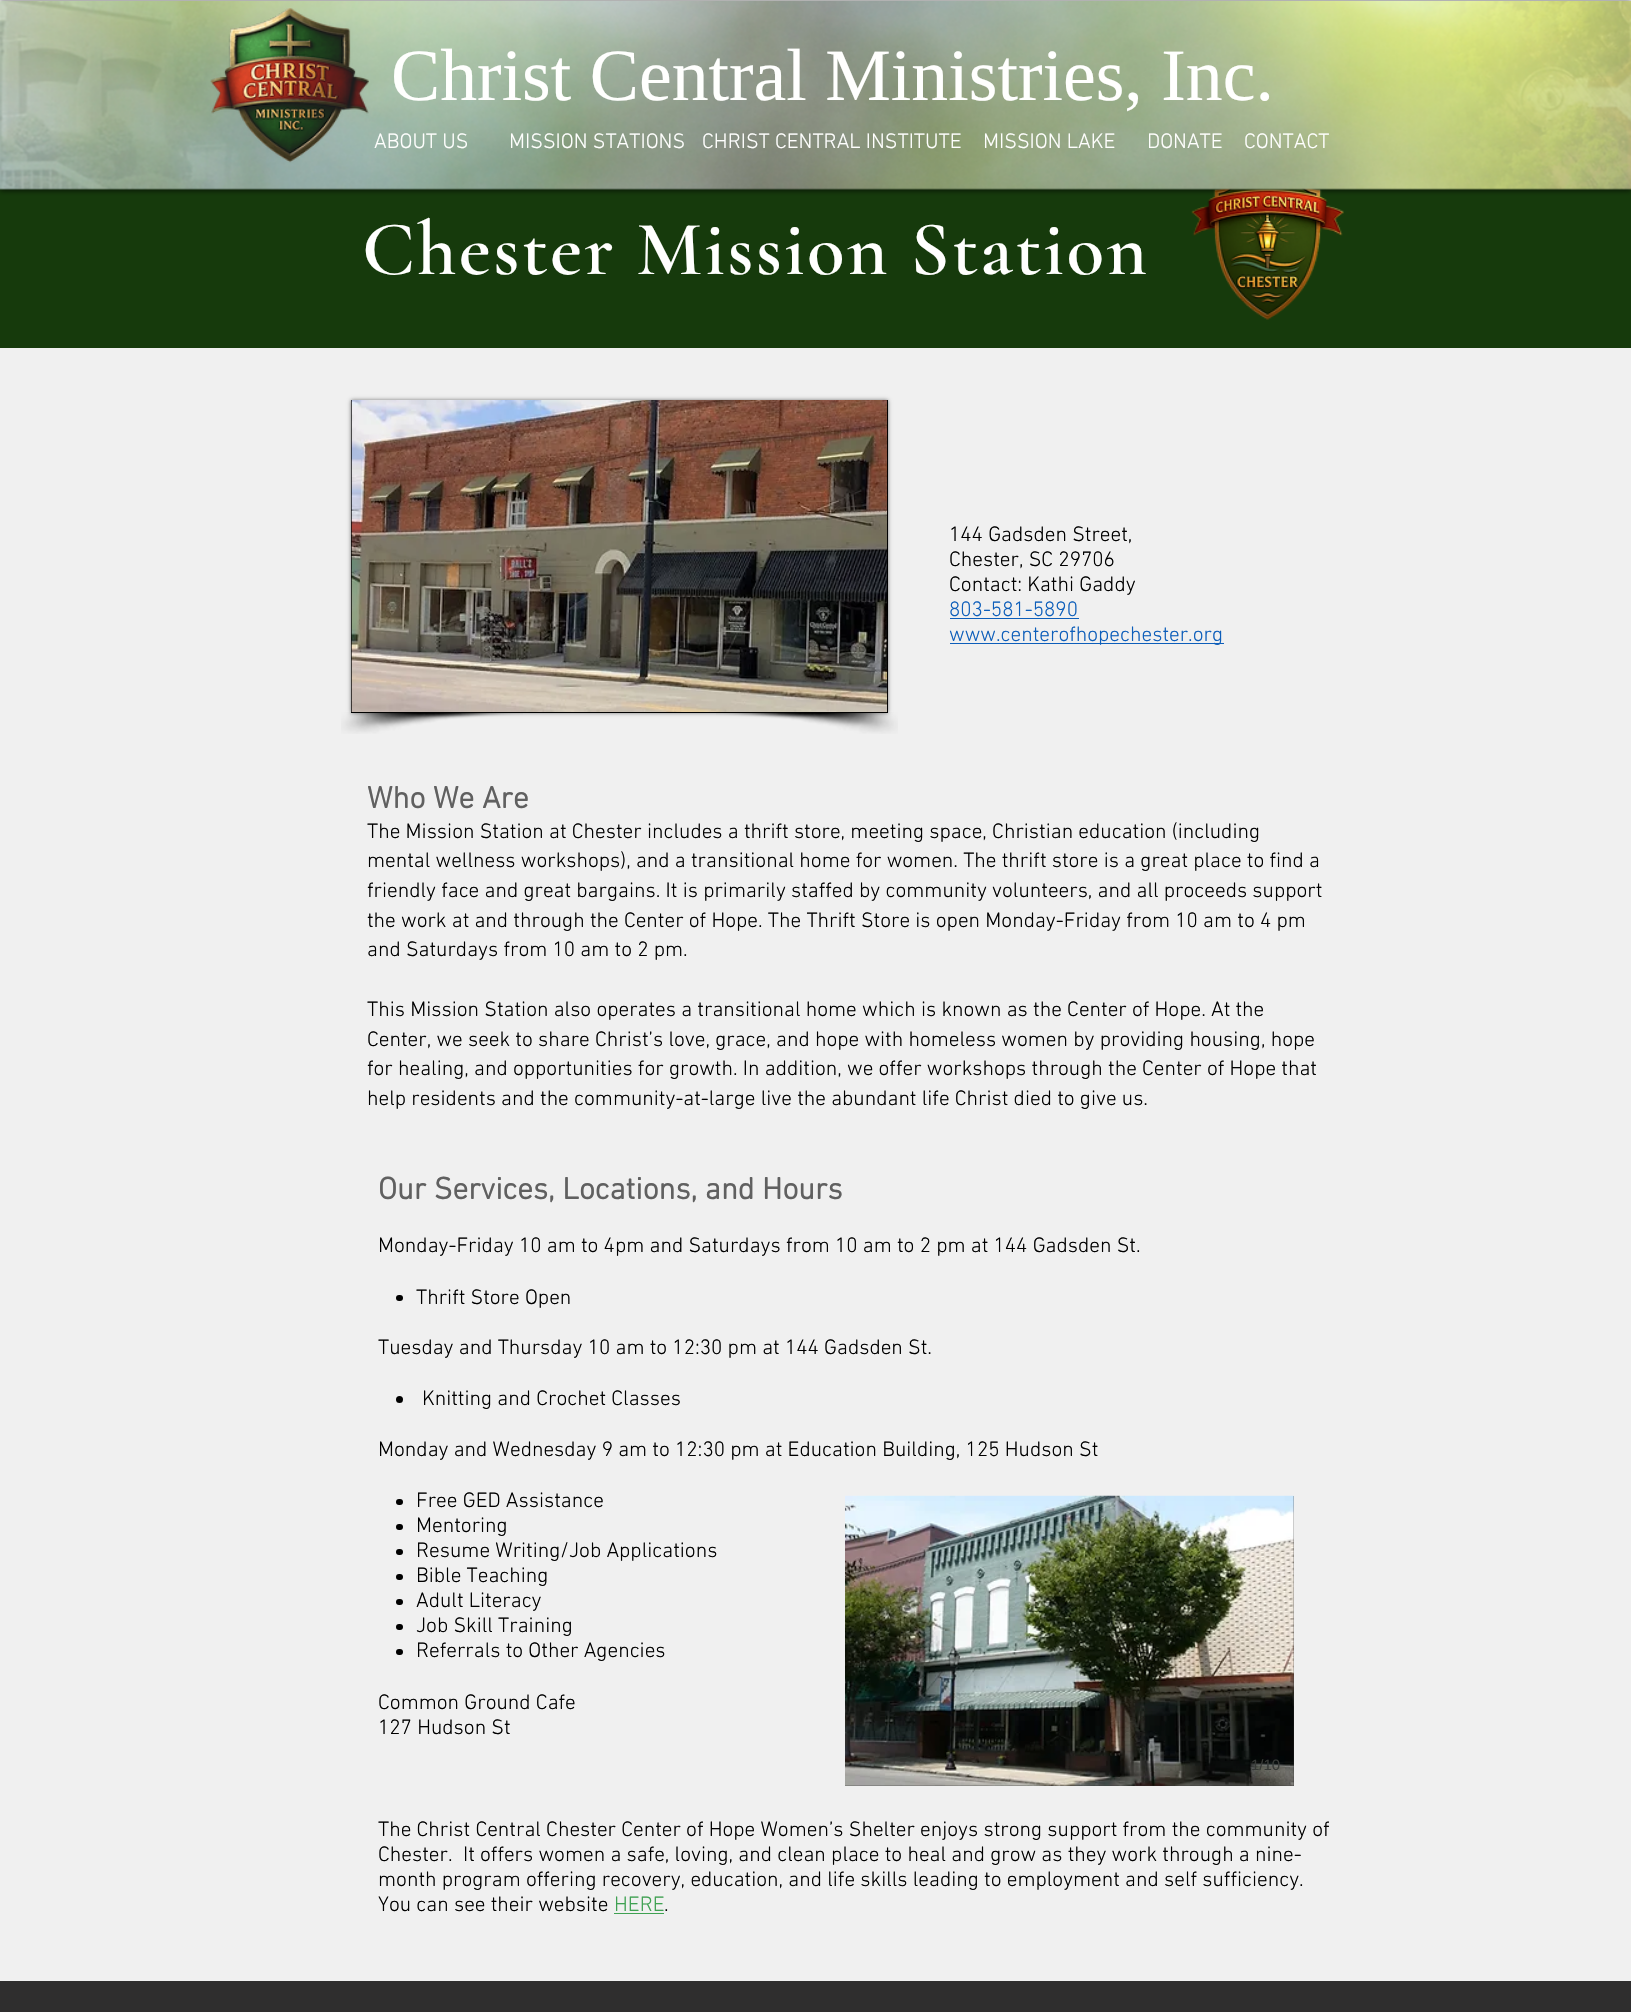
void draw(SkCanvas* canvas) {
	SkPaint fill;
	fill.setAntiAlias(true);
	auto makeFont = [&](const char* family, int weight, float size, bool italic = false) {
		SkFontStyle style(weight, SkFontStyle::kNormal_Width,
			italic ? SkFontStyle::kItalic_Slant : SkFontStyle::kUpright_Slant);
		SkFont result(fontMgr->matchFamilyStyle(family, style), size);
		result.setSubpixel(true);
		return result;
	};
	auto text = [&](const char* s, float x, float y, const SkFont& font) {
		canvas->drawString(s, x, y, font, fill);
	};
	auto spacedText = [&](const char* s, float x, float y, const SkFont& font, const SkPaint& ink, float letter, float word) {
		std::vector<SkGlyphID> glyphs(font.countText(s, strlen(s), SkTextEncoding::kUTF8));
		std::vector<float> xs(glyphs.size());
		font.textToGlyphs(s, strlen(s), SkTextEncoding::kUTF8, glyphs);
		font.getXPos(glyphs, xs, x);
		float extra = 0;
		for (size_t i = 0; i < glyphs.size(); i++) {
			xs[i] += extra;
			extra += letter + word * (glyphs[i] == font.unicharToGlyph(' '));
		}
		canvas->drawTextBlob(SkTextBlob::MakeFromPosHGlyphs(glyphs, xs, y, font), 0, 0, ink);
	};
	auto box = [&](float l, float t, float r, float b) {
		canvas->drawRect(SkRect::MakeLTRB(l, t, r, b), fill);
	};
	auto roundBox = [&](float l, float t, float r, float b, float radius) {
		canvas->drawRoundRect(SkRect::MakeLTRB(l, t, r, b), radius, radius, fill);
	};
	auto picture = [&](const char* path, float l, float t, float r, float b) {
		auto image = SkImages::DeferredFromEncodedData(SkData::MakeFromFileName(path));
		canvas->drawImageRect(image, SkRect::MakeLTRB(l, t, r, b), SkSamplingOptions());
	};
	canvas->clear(0xFFF0F0F0);
	fill.setColor(0xFF163A0C);
	box(0, 188, 1631, 348);
	picture("image2.png", 1191, 188, 1344, 320);
	fill.setColor(0x99000000);
	fill.setMaskFilter(SkMaskFilter::MakeBlur(kNormal_SkBlurStyle, 2.5f));
	canvas->drawRect(SkRect::MakeLTRB(0, 1, 1631, 191), fill);
	fill.setMaskFilter(nullptr);
	picture("image0.png", 0, 1, 1631, 190);
	picture("image1.png", 210, 8, 369, 163);
	fill.setColor(0x80000000);
	fill.setMaskFilter(SkMaskFilter::MakeBlur(kNormal_SkBlurStyle, 2));
	canvas->drawRect(SkRect::MakeLTRB(351, 400, 888, 713), fill);
	fill.setMaskFilter(nullptr);
	fill.setColor(0xFF000000);
	box(351, 400, 888, 713);
	picture("image3.png", 351, 400, 888, 712);
	picture("image4.png", 341, 712, 523, 734);
	picture("image5.png", 716, 712, 898, 734);
	fill.setColor(0xFF0D5EBA);
	box(950, 618, 1079, 619);
	box(950, 643, 1224, 644);
	fill.setColor(0xFF000000);
	roundBox(396, 1295, 403, 1301, 3);
	canvas->drawCircle(399.5f, 1399.5f, 3.5f, fill);
	roundBox(396, 1499, 403, 1505, 3);
	roundBox(396, 1524, 403, 1530, 3);
	roundBox(396, 1549, 403, 1555, 3);
	roundBox(396, 1574, 403, 1580, 3);
	roundBox(396, 1599, 403, 1605, 3);
	roundBox(396, 1624, 403, 1630, 3);
	roundBox(396, 1649, 403, 1655, 3);
	fill.setColor(0xFF3FA152);
	box(614, 1913, 664, 1914);
	fill.setColor(0xFF2F2E2E);
	box(845, 1496, 1294, 1786);
	picture("image6.png", 845, 1495, 1294, 1786);
	box(0, 1981, 1631, 2012);
	auto font1 = makeFont("Liberation Serif", 400, 73.75f);
	fill.setColor(0xFFFFFFFE);
	text("Christ Central Ministries, Inc.", 391, 100, font1);
	auto font2 = makeFont("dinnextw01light", 300, 21.25f);
	text("ABOUT US", 374, 148, font2);
	text("MISSION STATIONS", 509, 148, font2);
	text("CHRIST CENTRAL INSTITUTE", 702, 148, font2);
	text("MISSION LAKE", 983, 148, font2);
	text("DONATE", 1147, 148, font2);
	text("CONTACT", 1244, 148, font2);
	auto font3 = makeFont("Cormorant Garamond", 600, 77.5f);
	spacedText("Chester Mission Station", 362, 274, font3, fill, 2.3f, 0);
	fill.setColor(0xFF000000);
	text("144 Gadsden Street,", 949, 541, font2);
	text("Chester, SC 29706", 949, 566, font2);
	text("Contact: Kathi Gaddy", 949, 591, font2);
	fill.setColor(0xFF0D5EBA);
	text("803-581-5890", 949, 616, font2);
	text("www.centerofhopechester.org", 949, 641, font2);
	auto font4 = makeFont("dinnextw01light", 700, 31.25f);
	fill.setColor(0xFF606060);
	text("Who We Are", 367, 808, font4);
	fill.setColor(0xFF000000);
	text("The Mission Station at Chester includes a thrift store, meeting space, Christian education (including", 367, 838, font2);
	text("mental wellness workshops), and a transitional home for women. The thrift store is a great place to find a", 367, 867, font2);
	text("friendly face and great bargains. It is primarily staffed by community volunteers, and all proceeds support", 367, 897, font2);
	text("the work at and through the Center of Hope. The Thrift Store is open Monday-Friday from 10 am to 4 pm", 367, 927, font2);
	text("and Saturdays from 10 am to 2 pm.", 367, 956, font2);
	text("This Mission Station also operates a transitional home which is known as the Center of Hope. At the", 367, 1016, font2);
	text("Center, we seek to share Christ’s love, grace, and hope with homeless women by providing housing, hope", 367, 1046, font2);
	text("for healing, and opportunities for growth. In addition, we offer workshops through the Center of Hope that", 367, 1075, font2);
	text("help residents and the community-at-large live the abundant life Christ died to give us.", 367, 1105, font2);
	fill.setColor(0xFF606060);
	text("Our Services, Locations, and Hours", 378, 1199, font4);
	fill.setColor(0xFF000000);
	text("Monday-Friday 10 am to 4pm and Saturdays from 10 am to 2 pm at 144 Gadsden St.", 378, 1252, font2);
	text("Thrift Store Open", 416, 1304, font2);
	text("Tuesday and Thursday 10 am to 12:30 pm at 144 Gadsden St.", 378, 1354, font2);
	text("Knitting and Crochet Classes", 422, 1405, font2);
	text("Monday and Wednesday 9 am to 12:30 pm at Education Building, 125 Hudson St", 378, 1456, font2);
	text("Free GED Assistance", 416, 1507, font2);
	text("Mentoring", 416, 1532, font2);
	text("Resume Writing/Job Applications", 416, 1557, font2);
	text("Bible Teaching", 416, 1582, font2);
	text("Adult Literacy", 416, 1607, font2);
	text("Job Skill Training", 416, 1632, font2);
	text("Referrals to Other Agencies", 416, 1657, font2);
	text("Common Ground Cafe", 378, 1709, font2);
	text("127 Hudson St", 378, 1734, font2);
	text("The Christ Central Chester Center of Hope Women’s Shelter enjoys strong support from the community of", 378, 1836, font2);
	text("Chester.  It offers women a safe, loving, and clean place to heal and grow as they work through a nine-", 378, 1861, font2);
	text("month program offering recovery, education, and life skills leading to employment and self sufficiency.", 378, 1886, font2);
	text("You can see their website", 378, 1911, font2);
	fill.setColor(0xFF3FA152);
	text("HERE", 614, 1911, font2);
	fill.setColor(0xFF000000);
	text(".", 664, 1911, font2);
	auto font5 = makeFont("Liberation Sans", 400, 15);
	fill.setColor(0xFF373A37);
	text("1/10", 1251, 1770, font5);
}
